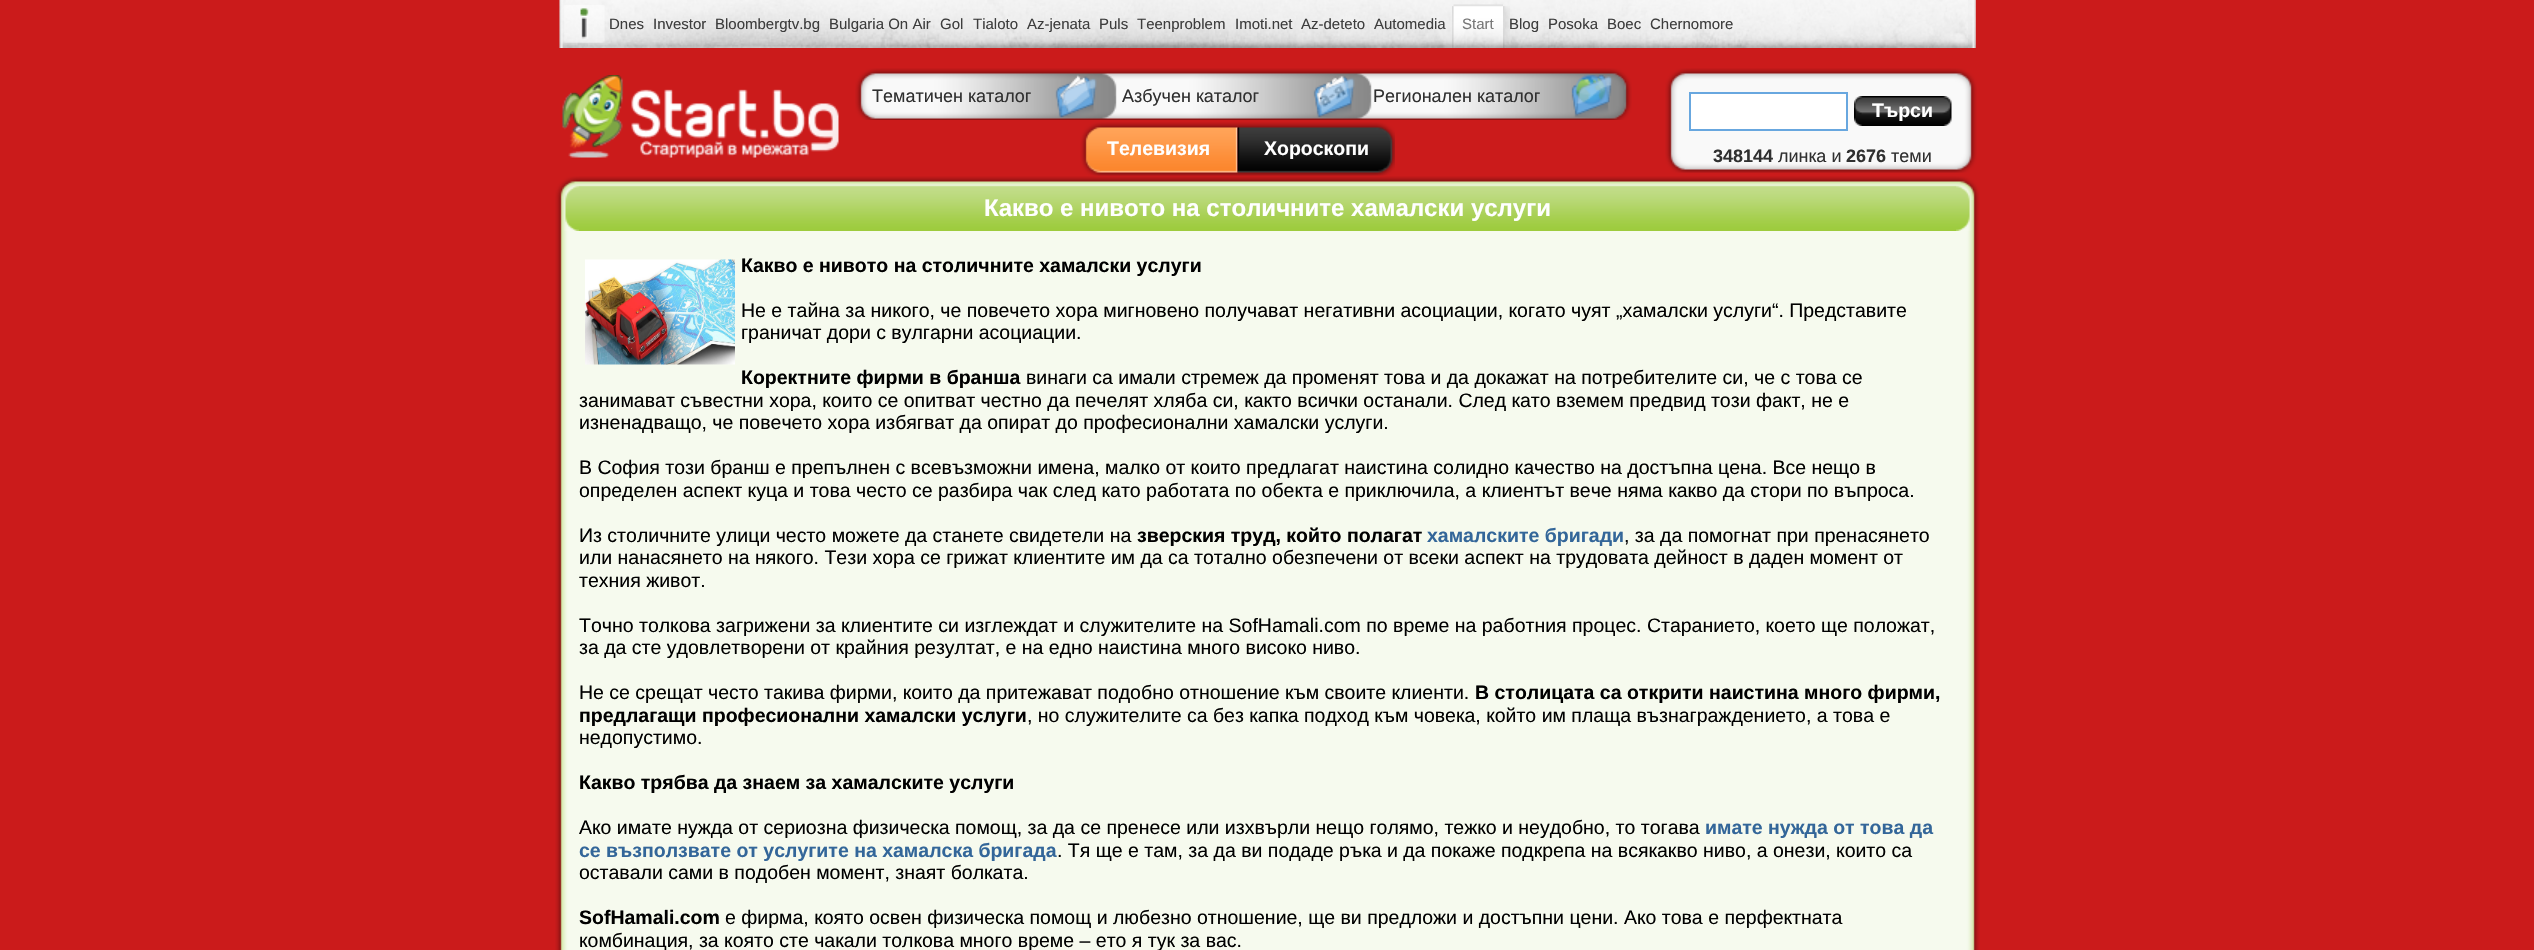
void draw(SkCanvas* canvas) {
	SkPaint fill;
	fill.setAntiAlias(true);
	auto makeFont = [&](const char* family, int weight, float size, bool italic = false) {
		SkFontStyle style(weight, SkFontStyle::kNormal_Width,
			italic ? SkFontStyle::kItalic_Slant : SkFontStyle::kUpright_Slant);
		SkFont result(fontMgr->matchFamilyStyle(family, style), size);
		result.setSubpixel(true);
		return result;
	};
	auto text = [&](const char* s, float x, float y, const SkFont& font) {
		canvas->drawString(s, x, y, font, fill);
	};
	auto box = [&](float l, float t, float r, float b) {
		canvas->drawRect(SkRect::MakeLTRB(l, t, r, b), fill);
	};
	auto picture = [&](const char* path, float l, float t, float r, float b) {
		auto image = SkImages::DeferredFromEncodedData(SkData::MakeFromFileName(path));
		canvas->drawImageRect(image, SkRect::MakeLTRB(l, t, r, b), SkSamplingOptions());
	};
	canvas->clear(0xFFCB1B1B);
	picture("image0.png", 559, 0, 1976, 48);
	picture("image1.png", 563, 5, 605, 43);
	picture("image2.png", 1453, 4, 1503, 48);
	picture("image3.png", 1452, 6, 1454, 48);
	picture("image4.png", 1503, 6, 1505, 48);
	picture("image5.png", 1504, 6, 1510, 43);
	picture("image6.png", 1968, 0, 1976, 48);
	picture("image7.png", 562, 75, 839, 158);
	picture("image8.png", 855, 68, 1632, 120);
	picture("image9.png", 1080, 122, 1238, 176);
	picture("image10.png", 1237, 122, 1395, 176);
	picture("image11.png", 1665, 68, 1977, 173);
	fill.setColor(0xFFFFFFFF);
	canvas->drawRect(SkRect::MakeLTRB(1690, 93, 1847, 130), fill);
	fill.setStyle(SkPaint::kStroke_Style);
	fill.setStrokeWidth(2);
	fill.setColor(0xFF68A7DF);
	canvas->drawRect(SkRect::MakeLTRB(1690, 93, 1847, 130), fill);
	picture("image12.png", 1854, 96, 1952, 126);
	picture("image13.png", 555, 176, 579, 231);
	picture("image14.png", 579, 176, 1956, 231);
	picture("image15.png", 1956, 176, 1980, 231);
	picture("image16.png", 555, 231, 579, 950);
	fill.setStyle(SkPaint::kFill_Style);
	fill.setColor(0xFFF6FAEE);
	box(579, 231, 1956, 950);
	picture("image17.png", 585, 259, 735, 365);
	picture("image18.png", 1956, 231, 1980, 950);
	auto font1 = makeFont("Liberation Sans", 400, 15);
	fill.setColor(0xFF3D3D3D);
	text("Dnes", 609, 29, font1);
	text("Investor", 653, 29, font1);
	text("Bloombergtv.bg", 715, 29, font1);
	text("Bulgaria On Air", 829, 29, font1);
	text("Gol", 940, 29, font1);
	text("Tialoto", 973, 29, font1);
	text("Az-jenata", 1027, 29, font1);
	text("Puls", 1099, 29, font1);
	text("Teenproblem", 1137, 29, font1);
	text("Imoti.net", 1235, 29, font1);
	text("Az-deteto", 1301, 29, font1);
	text("Automedia", 1374, 29, font1);
	fill.setColor(0xFF777777);
	text("Start", 1462, 29, font1);
	fill.setColor(0xFF3D3D3D);
	text("Blog", 1509, 29, font1);
	text("Posoka", 1548, 29, font1);
	text("Boec", 1607, 29, font1);
	text("Chernomore", 1650, 29, font1);
	auto font2 = makeFont("Liberation Sans", 400, 18);
	fill.setColor(0xFF303030);
	text("Тематичен каталог", 872, 102, font2);
	text("Азбучен каталог", 1122, 102, font2);
	text("Регионален каталог", 1373, 102, font2);
	auto font3 = makeFont("Liberation Sans", 700, 19.5f);
	fill.setColor(0xFFFFFFFF);
	text("Телевизия", 1107, 155, font3);
	text("Хороскопи", 1264, 155, font3);
	text("Търси", 1872, 117, font3);
	auto font4 = makeFont("Liberation Sans", 700, 18);
	fill.setColor(0xFF303030);
	text("348144", 1713, 162, font4);
	text("линка и", 1778, 162, font2);
	text("2676", 1846, 162, font4);
	text("теми", 1891, 162, font2);
	auto font5 = makeFont("Liberation Sans", 700, 24);
	fill.setColor(0xFFFFFFFF);
	text("Какво е нивото на столичните хамалски услуги", 984, 216, font5);
	fill.setColor(0xFF000000);
	text("Какво е нивото на столичните хамалски услуги", 741, 272, font3);
	auto font6 = makeFont("Liberation Sans", 400, 19.5f);
	text("Не е тайна за никого, че повечето хора мигновено получават негативни асоциации, когато чуят „хамалски услуги“. Представите", 741, 317, font6);
	text("граничат дори с вулгарни асоциации.", 741, 339, font6);
	text("Коректните фирми в бранша", 741, 384, font3);
	text("винаги са имали стремеж да променят това и да докажат на потребителите си, че с това се", 1026, 384, font6);
	text("занимават съвестни хора, които се опитват честно да печелят хляба си, както всички останали. След като вземем предвид този факт, не е", 579, 407, font6);
	text("изненадващо, че повечето хора избягват да опират до професионални хамалски услуги.", 579, 429, font6);
	text("В София този бранш е препълнен с всевъзможни имена, малко от които предлагат наистина солидно качество на достъпна цена. Все нещо в", 579, 474, font6);
	text("определен аспект куца и това често се разбира чак след като работата по обекта е приключила, а клиентът вече няма какво да стори по въпроса.", 579, 497, font6);
	text("Из столичните улици често можете да станете свидетели на", 579, 542, font6);
	text("зверския труд, който полагат", 1137, 542, font3);
	fill.setColor(0xFF336699);
	text("хамалските бригади", 1427, 542, font3);
	fill.setColor(0xFF000000);
	text(", за да помогнат при пренасянето", 1624, 542, font6);
	text("или нанасянето на някого. Тези хора се грижат клиентите им да са тотално обезпечени от всеки аспект на трудовата дейност в даден момент от", 579, 564, font6);
	text("техния живот.", 579, 587, font6);
	text("Точно толкова загрижени за клиентите си изглеждат и служителите на SofHamali.com по време на работния процес. Старанието, което ще положат,", 579, 632, font6);
	text("за да сте удовлетворени от крайния резултат, е на едно наистина много високо ниво.", 579, 654, font6);
	text("Не се срещат често такива фирми, които да притежават подобно отношение към своите клиенти.", 579, 699, font6);
	text("В столицата са открити наистина много фирми,", 1475, 699, font3);
	text("предлагащи професионални хамалски услуги", 579, 722, font3);
	text(", но служителите са без капка подход към човека, който им плаща възнаграждението, а това е", 1027, 722, font6);
	text("недопустимо.", 579, 744, font6);
	text("Какво трябва да знаем за хамалските услуги", 579, 789, font3);
	text("Ако имате нужда от сериозна физическа помощ, за да се пренесе или изхвърли нещо голямо, тежко и неудобно, то тогава", 579, 834, font6);
	fill.setColor(0xFF336699);
	text("имате нужда от това да", 1705, 834, font3);
	text("се възползвате от услугите на хамалска бригада", 579, 857, font3);
	fill.setColor(0xFF000000);
	text(". Тя ще е там, за да ви подаде ръка и да покаже подкрепа на всякакво ниво, а онези, които са", 1057, 857, font6);
	text("оставали сами в подобен момент, знаят болката.", 579, 879, font6);
	text("SofHamali.com", 579, 924, font3);
	text("е фирма, която освен физическа помощ и любезно отношение, ще ви предложи и достъпни цени. Ако това е перфектната", 725, 924, font6);
	text("комбинация, за която сте чакали толкова много време – ето я тук за вас.", 579, 947, font6);
}
